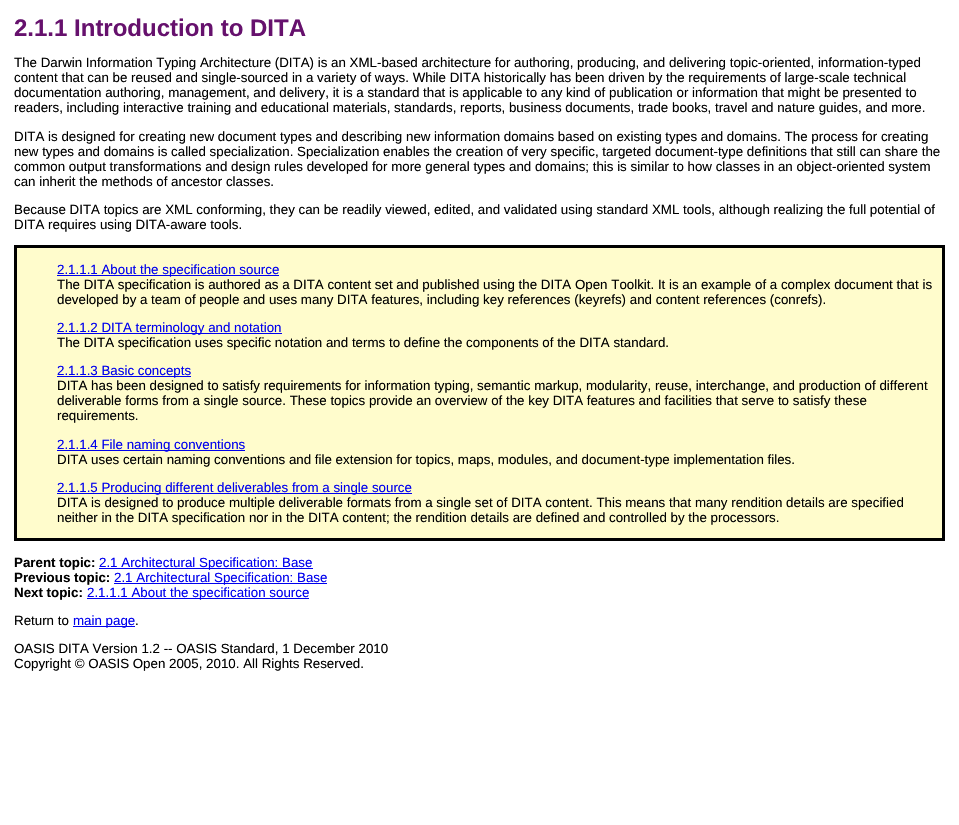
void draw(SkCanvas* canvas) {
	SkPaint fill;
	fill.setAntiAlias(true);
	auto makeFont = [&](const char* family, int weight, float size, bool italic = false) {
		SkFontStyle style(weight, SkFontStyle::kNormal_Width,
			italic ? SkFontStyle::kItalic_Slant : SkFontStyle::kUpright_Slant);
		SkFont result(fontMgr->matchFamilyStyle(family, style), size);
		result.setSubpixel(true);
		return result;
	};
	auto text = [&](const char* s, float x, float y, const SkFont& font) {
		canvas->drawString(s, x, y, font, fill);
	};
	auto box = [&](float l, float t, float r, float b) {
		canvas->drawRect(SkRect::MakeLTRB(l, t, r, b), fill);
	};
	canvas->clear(0xFFFFFFFF);
	fill.setColor(0xFFFFFCCC);
	canvas->drawRect(SkRect::MakeLTRB(15.5f, 246.5f, 943.5f, 539.5f), fill);
	fill.setStyle(SkPaint::kStroke_Style);
	fill.setStrokeWidth(3);
	fill.setColor(0xFF000000);
	canvas->drawRect(SkRect::MakeLTRB(15.5f, 246.5f, 943.5f, 539.5f), fill);
	fill.setStyle(SkPaint::kFill_Style);
	fill.setColor(0xFF0000EE);
	box(57, 275, 279, 276);
	box(57, 333, 282, 334);
	box(57, 376, 191, 377);
	box(57, 450, 245, 451);
	box(57, 493, 412, 494);
	box(99, 568, 313, 569);
	box(114, 583, 327, 584);
	box(87, 598, 309, 599);
	box(73, 626, 135, 627);
	auto font1 = makeFont("Liberation Sans", 700, 24);
	fill.setColor(0xFF66116D);
	text("2.1.1 Introduction to DITA", 14, 36, font1);
	auto font2 = makeFont("Liberation Sans", 400, 13.33f);
	fill.setColor(0xFF000000);
	text("The Darwin Information Typing Architecture (DITA) is an XML-based architecture for authoring, producing, and delivering topic-oriented, information-typed", 14, 67, font2);
	text("content that can be reused and single-sourced in a variety of ways. While DITA historically has been driven by the requirements of large-scale technical", 14, 82, font2);
	text("documentation authoring, management, and delivery, it is a standard that is applicable to any kind of publication or information that might be presented to", 14, 97, font2);
	text("readers, including interactive training and educational materials, standards, reports, business documents, trade books, travel and nature guides, and more.", 14, 112, font2);
	text("DITA is designed for creating new document types and describing new information domains based on existing types and domains. The process for creating", 14, 141, font2);
	text("new types and domains is called specialization. Specialization enables the creation of very specific, targeted document-type definitions that still can share the", 14, 156, font2);
	text("common output transformations and design rules developed for more general types and domains; this is similar to how classes in an object-oriented system", 14, 171, font2);
	text("can inherit the methods of ancestor classes.", 14, 186, font2);
	text("Because DITA topics are XML conforming, they can be readily viewed, edited, and validated using standard XML tools, although realizing the full potential of", 14, 214, font2);
	text("DITA requires using DITA-aware tools.", 14, 229, font2);
	fill.setColor(0xFF0000EE);
	text("2.1.1.1 About the specification source", 57, 274, font2);
	fill.setColor(0xFF000000);
	text("The DITA specification is authored as a DITA content set and published using the DITA Open Toolkit. It is an example of a complex document that is", 57, 289, font2);
	text("developed by a team of people and uses many DITA features, including key references (keyrefs) and content references (conrefs).", 57, 304, font2);
	fill.setColor(0xFF0000EE);
	text("2.1.1.2 DITA terminology and notation", 57, 332, font2);
	fill.setColor(0xFF000000);
	text("The DITA specification uses specific notation and terms to define the components of the DITA standard.", 57, 347, font2);
	fill.setColor(0xFF0000EE);
	text("2.1.1.3 Basic concepts", 57, 375, font2);
	fill.setColor(0xFF000000);
	text("DITA has been designed to satisfy requirements for information typing, semantic markup, modularity, reuse, interchange, and production of different", 57, 390, font2);
	text("deliverable forms from a single source. These topics provide an overview of the key DITA features and facilities that serve to satisfy these", 57, 405, font2);
	text("requirements.", 57, 420, font2);
	fill.setColor(0xFF0000EE);
	text("2.1.1.4 File naming conventions", 57, 449, font2);
	fill.setColor(0xFF000000);
	text("DITA uses certain naming conventions and file extension for topics, maps, modules, and document-type implementation files.", 57, 464, font2);
	fill.setColor(0xFF0000EE);
	text("2.1.1.5 Producing different deliverables from a single source", 57, 492, font2);
	fill.setColor(0xFF000000);
	text("DITA is designed to produce multiple deliverable formats from a single set of DITA content. This means that many rendition details are specified", 57, 507, font2);
	text("neither in the DITA specification nor in the DITA content; the rendition details are defined and controlled by the processors.", 57, 522, font2);
	auto font3 = makeFont("Liberation Sans", 700, 13.33f);
	text("Parent topic:", 14, 567, font3);
	fill.setColor(0xFF0000EE);
	text("2.1 Architectural Specification: Base", 99, 567, font2);
	fill.setColor(0xFF000000);
	text("Previous topic:", 14, 582, font3);
	fill.setColor(0xFF0000EE);
	text("2.1 Architectural Specification: Base", 114, 582, font2);
	fill.setColor(0xFF000000);
	text("Next topic:", 14, 597, font3);
	fill.setColor(0xFF0000EE);
	text("2.1.1.1 About the specification source", 87, 597, font2);
	fill.setColor(0xFF000000);
	text("Return to", 14, 625, font2);
	fill.setColor(0xFF0000EE);
	text("main page", 73, 625, font2);
	fill.setColor(0xFF000000);
	text(".", 135, 625, font2);
	text("OASIS DITA Version 1.2 -- OASIS Standard, 1 December 2010", 14, 653, font2);
	text("Copyright © OASIS Open 2005, 2010. All Rights Reserved.", 14, 668, font2);
}
